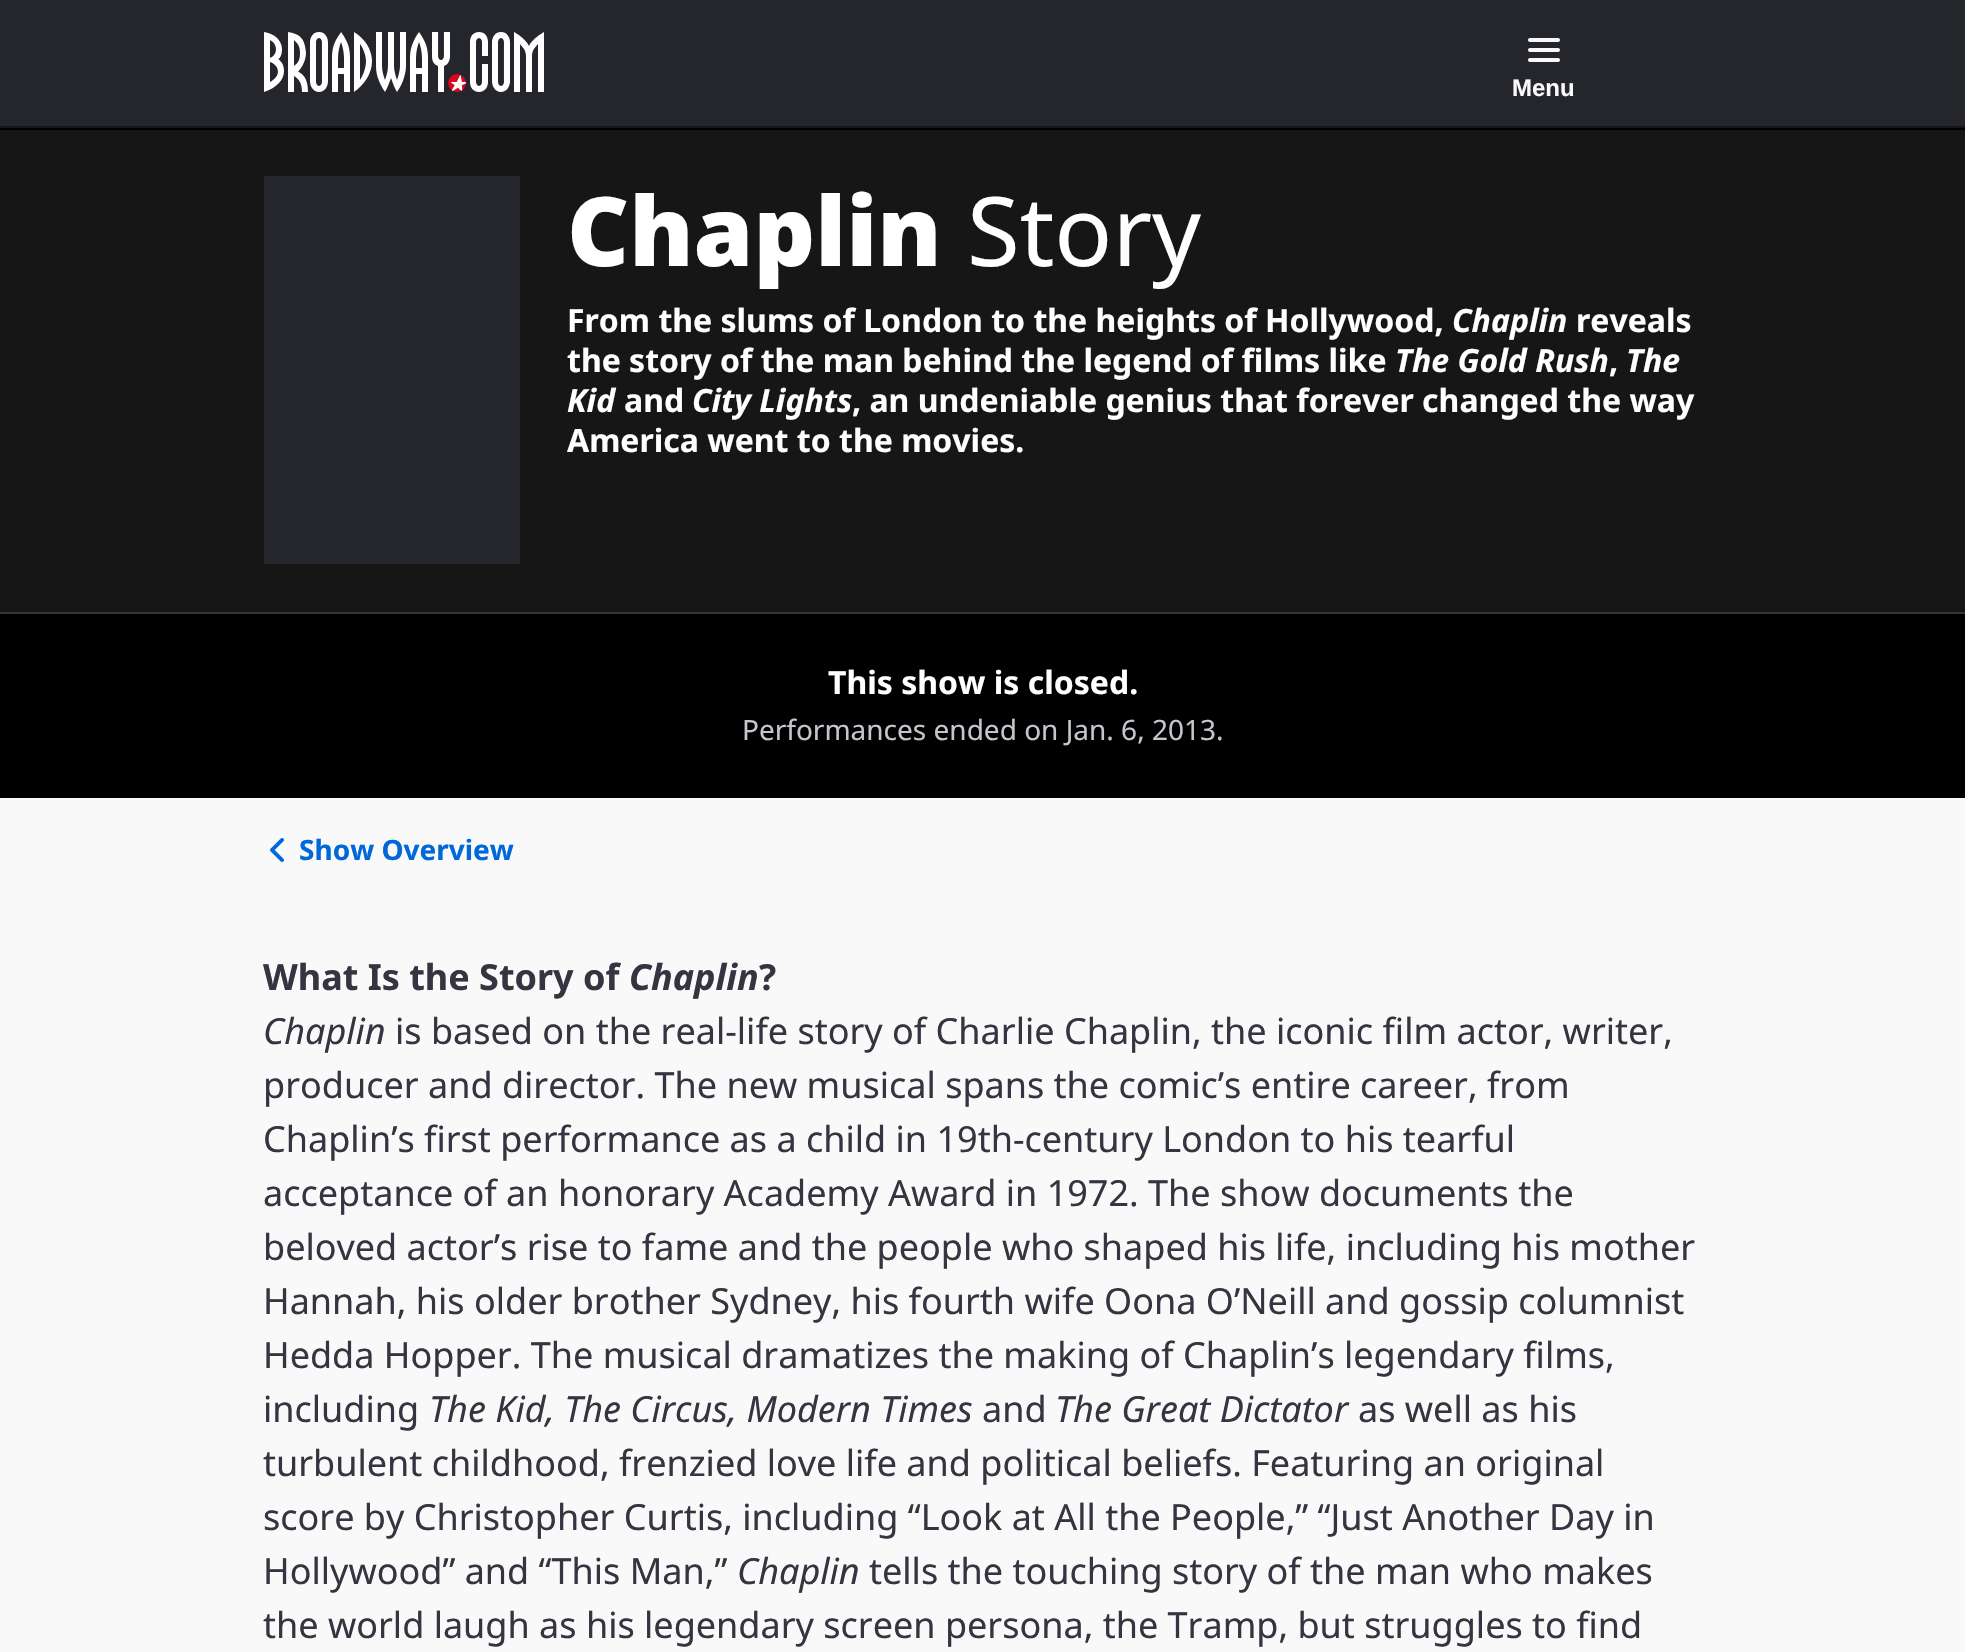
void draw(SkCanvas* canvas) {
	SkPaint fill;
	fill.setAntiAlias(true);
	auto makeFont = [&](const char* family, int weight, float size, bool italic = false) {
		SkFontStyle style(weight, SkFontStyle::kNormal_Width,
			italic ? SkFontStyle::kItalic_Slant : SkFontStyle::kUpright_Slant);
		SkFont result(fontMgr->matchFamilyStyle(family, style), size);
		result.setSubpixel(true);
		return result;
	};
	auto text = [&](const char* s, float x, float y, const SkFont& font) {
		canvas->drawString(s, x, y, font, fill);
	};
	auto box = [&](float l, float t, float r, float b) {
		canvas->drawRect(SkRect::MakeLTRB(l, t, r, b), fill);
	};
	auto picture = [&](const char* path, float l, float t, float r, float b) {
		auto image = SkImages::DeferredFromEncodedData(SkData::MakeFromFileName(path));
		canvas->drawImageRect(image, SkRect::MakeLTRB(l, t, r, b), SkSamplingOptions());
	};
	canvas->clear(0xFF25262B);
	fill.setColor(0xFF161616);
	box(0, 126, 1965, 128);
	picture("image0.png", 264, 32, 544, 92);
	picture("image1.png", 1528, 38, 1560, 62);
	box(0, 130, 1965, 612);
	fill.setColor(0xFF000000);
	box(0, 128, 1965, 130);
	{
		const SkColor colors[] = {0xFF2B2C34, 0xFF25262B};
		const float stops[] = {0, 1};
		const SkPoint ends[] = {{1370, 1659}, {182, 245}};
		fill.setShader(SkGradientShader::MakeLinear(ends, colors, stops, 2, SkTileMode::kClamp));
		fill.setAlpha(255);
	}
	box(264, 176, 520, 564);
	fill.setShader(nullptr);
	fill.setColor(0xFF000000);
	box(0, 614, 1965, 798);
	fill.setColor(0xFF343540);
	box(0, 612, 1965, 614);
	fill.setColor(0xFFF9F9FA);
	box(0, 798, 1965, 1652);
	picture("image2.png", 270, 838, 284, 862);
	auto font1 = makeFont("Liberation Sans", 700, 24);
	text("Menu", 1512, 96, font1);
	auto font2 = makeFont("Noto Sans", 900, 96);
	fill.setColor(0xFFFFFFFF);
	text("Chaplin", 567, 266, font2);
	auto font3 = makeFont("Noto Sans", 400, 96);
	text("Story", 967, 266, font3);
	auto font4 = makeFont("Noto Sans", 700, 32);
	text("From the slums of London to the heights of Hollywood,", 567, 332, font4);
	auto font5 = makeFont("Noto Sans", 700, 32, true);
	text("Chaplin", 1452, 332, font5);
	text("reveals", 1576, 332, font4);
	text("the story of the man behind the legend of films like", 567, 372, font4);
	text("The Gold Rush", 1395, 372, font5);
	text(",", 1609, 372, font4);
	text("The", 1626, 372, font5);
	text("Kid", 567, 412, font5);
	text("and", 624, 412, font4);
	text("City Lights", 692, 412, font5);
	text(", an undeniable genius that forever changed the way", 852, 412, font4);
	text("America went to the movies.", 567, 452, font4);
	text("This show is closed.", 828, 694, font4);
	auto font6 = makeFont("Noto Sans", 400, 28);
	fill.setColor(0xFFC5C6CD);
	text("Performances ended on Jan. 6, 2013.", 742, 740, font6);
	auto font7 = makeFont("Noto Sans", 700, 28);
	fill.setColor(0xFF0068D9);
	text("Show Overview", 299, 860, font7);
	auto font8 = makeFont("Noto Sans", 700, 36);
	fill.setColor(0xFF343540);
	text("What Is the Story of", 263, 990, font8);
	auto font9 = makeFont("Noto Sans", 700, 36, true);
	text("Chaplin", 629, 990, font9);
	text("?", 759, 990, font8);
	auto font10 = makeFont("Noto Sans", 400, 36, true);
	text("Chaplin", 263, 1044, font10);
	auto font11 = makeFont("Noto Sans", 400, 36);
	text("is based on the real-life story of Charlie Chaplin, the iconic film actor, writer,", 395, 1044, font11);
	text("producer and director. The new musical spans the comic’s entire career, from", 263, 1098, font11);
	text("Chaplin’s first performance as a child in 19th-century London to his tearful", 263, 1152, font11);
	text("acceptance of an honorary Academy Award in 1972. The show documents the", 263, 1206, font11);
	text("beloved actor’s rise to fame and the people who shaped his life, including his mother", 263, 1260, font11);
	text("Hannah, his older brother Sydney, his fourth wife Oona O’Neill and gossip columnist", 263, 1314, font11);
	text("Hedda Hopper. The musical dramatizes the making of Chaplin’s legendary films,", 263, 1368, font11);
	text("including", 263, 1422, font11);
	text("The Kid, The Circus, Modern Times", 429, 1422, font10);
	text("and", 982, 1422, font11);
	text("The Great Dictator", 1055, 1422, font10);
	text("as well as his", 1358, 1422, font11);
	text("turbulent childhood, frenzied love life and political beliefs. Featuring an original", 263, 1476, font11);
	text("score by Christopher Curtis, including “Look at All the People,” “Just Another Day in", 263, 1530, font11);
	text("Hollywood” and “This Man,”", 263, 1584, font11);
	text("Chaplin", 737, 1584, font10);
	text("tells the touching story of the man who makes", 869, 1584, font11);
	text("the world laugh as his legendary screen persona, the Tramp, but struggles to find", 263, 1638, font11);
}
